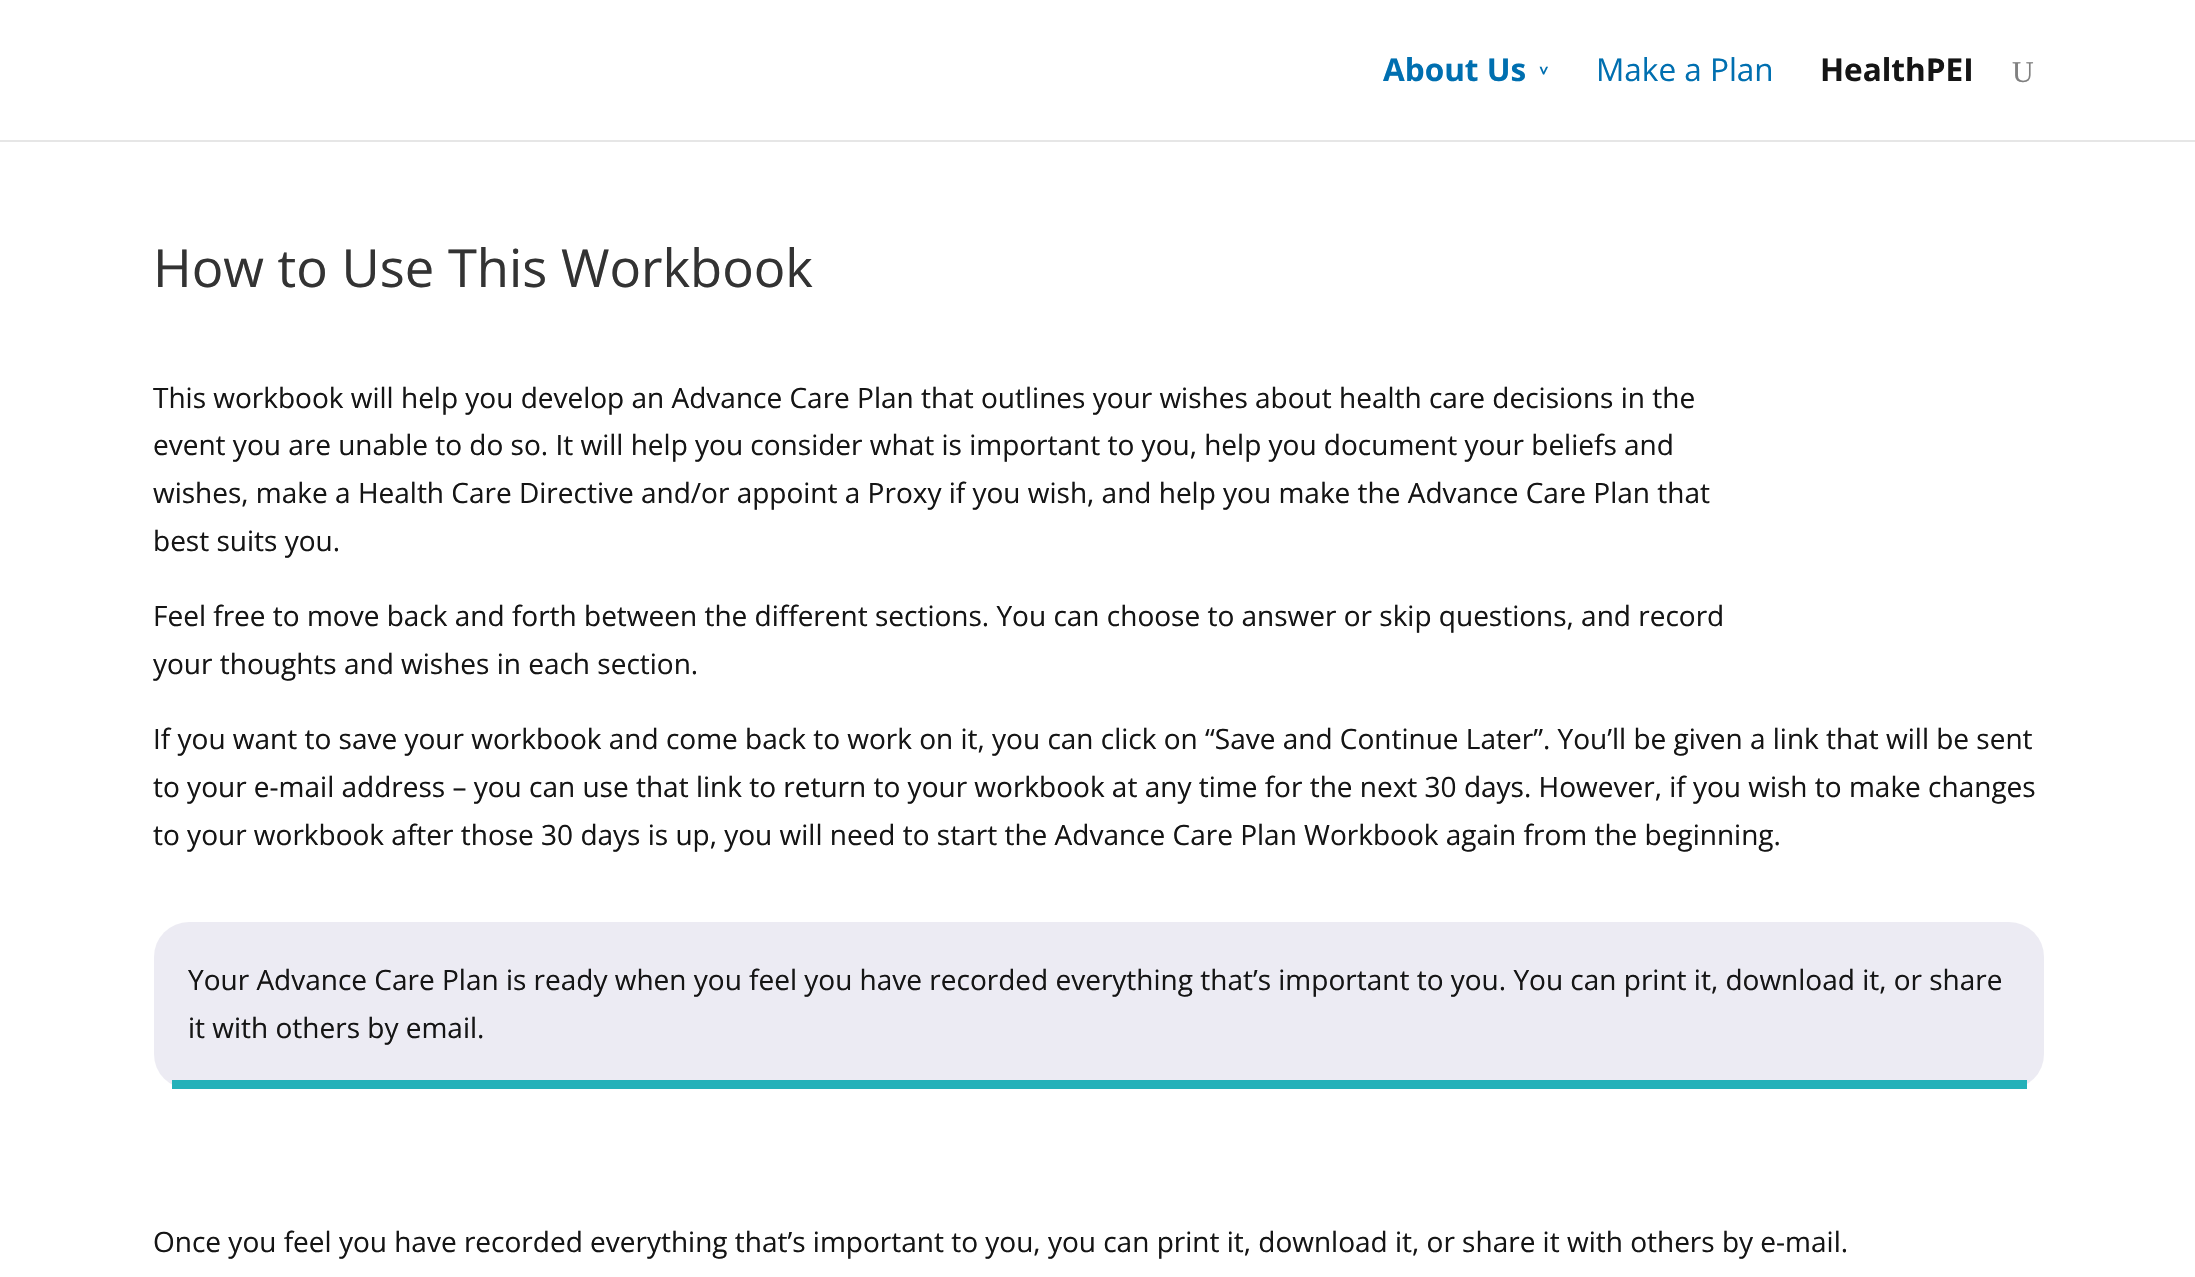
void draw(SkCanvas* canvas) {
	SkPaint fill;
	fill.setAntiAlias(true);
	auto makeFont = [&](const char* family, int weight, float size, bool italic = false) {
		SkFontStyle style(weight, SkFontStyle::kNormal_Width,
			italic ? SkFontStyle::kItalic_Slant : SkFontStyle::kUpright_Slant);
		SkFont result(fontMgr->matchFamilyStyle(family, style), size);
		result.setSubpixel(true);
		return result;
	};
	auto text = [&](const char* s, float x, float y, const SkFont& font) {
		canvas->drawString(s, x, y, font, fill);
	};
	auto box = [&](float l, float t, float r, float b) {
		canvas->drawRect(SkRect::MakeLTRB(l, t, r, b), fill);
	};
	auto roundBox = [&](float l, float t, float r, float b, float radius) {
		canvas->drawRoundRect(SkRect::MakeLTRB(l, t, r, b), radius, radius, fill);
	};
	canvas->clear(0xFFFFFFFF);
	fill.setColor(0xFFE6E6E6);
	box(0, 140, 2195, 142);
	fill.setColor(0xFFECEBF3);
	roundBox(154, 922, 2044, 1089, 35);
	fill.setColor(0xFF24B1B9);
	box(172, 1080, 2027, 1089);
	auto font1 = makeFont("Open Sans", 700, 31.5f);
	fill.setColor(0xFF006FB0);
	text("About Us", 1383, 81, font1);
	auto font2 = makeFont("Open Sans", 700, 16);
	canvas->save();
	canvas->rotate(90, 1538, 66);
	text(">", 1538, 66, font2);
	canvas->restore();
	auto font3 = makeFont("Open Sans", 400, 31.5f);
	text("Make a Plan", 1596, 81, font3);
	fill.setColor(0xFF151515);
	text("HealthPEI", 1820, 81, font1);
	auto font4 = makeFont("Liberation Serif", 400, 30);
	fill.setColor(0xFF808080);
	text("U", 2012, 82, font4);
	auto font5 = makeFont("Open Sans", 400, 52.5f);
	fill.setColor(0xFF333333);
	text("How to Use This Workbook", 153, 287, font5);
	auto font6 = makeFont("Open Sans", 400, 28);
	fill.setColor(0xFF151515);
	text("This workbook will help you develop an Advance Care Plan that outlines your wishes about health care decisions in the", 153, 408, font6);
	text("event you are unable to do so. It will help you consider what is important to you, help you document your beliefs and", 153, 455, font6);
	text("wishes, make a Health Care Directive and/or appoint a Proxy if you wish, and help you make the Advance Care Plan that", 153, 503, font6);
	text("best suits you.", 153, 551, font6);
	text("Feel free to move back and forth between the different sections. You can choose to answer or skip questions, and record", 153, 626, font6);
	text("your thoughts and wishes in each section.", 153, 674, font6);
	text("If you want to save your workbook and come back to work on it, you can click on “Save and Continue Later”. You’ll be given a link that will be sent", 153, 749, font6);
	text("to your e-mail address – you can use that link to return to your workbook at any time for the next 30 days. However, if you wish to make changes", 153, 797, font6);
	text("to your workbook after those 30 days is up, you will need to start the Advance Care Plan Workbook again from the beginning.", 153, 845, font6);
	text("Your Advance Care Plan is ready when you feel you have recorded everything that’s important to you. You can print it, download it, or share", 188, 990, font6);
	text("it with others by email.", 188, 1038, font6);
	text("Once you feel you have recorded everything that’s important to you, you can print it, download it, or share it with others by e-mail.", 153, 1252, font6);
}
